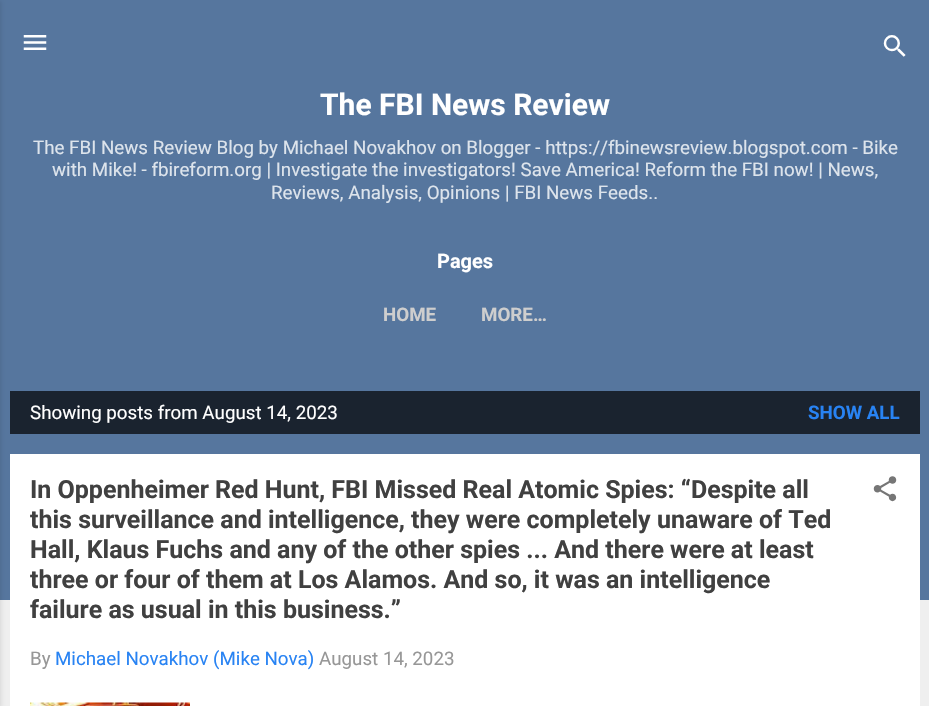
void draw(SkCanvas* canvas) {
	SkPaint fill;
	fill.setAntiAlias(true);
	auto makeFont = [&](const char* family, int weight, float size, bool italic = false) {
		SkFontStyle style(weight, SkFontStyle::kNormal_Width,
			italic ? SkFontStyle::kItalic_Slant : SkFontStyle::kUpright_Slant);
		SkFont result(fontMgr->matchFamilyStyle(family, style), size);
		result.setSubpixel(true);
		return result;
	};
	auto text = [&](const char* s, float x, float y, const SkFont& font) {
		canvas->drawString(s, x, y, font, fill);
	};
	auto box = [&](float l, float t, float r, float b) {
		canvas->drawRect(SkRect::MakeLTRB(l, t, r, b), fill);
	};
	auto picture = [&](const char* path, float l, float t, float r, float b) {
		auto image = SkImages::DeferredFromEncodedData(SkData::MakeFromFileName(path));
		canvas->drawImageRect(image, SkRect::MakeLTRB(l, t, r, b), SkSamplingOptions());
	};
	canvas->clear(0xFFEFEFEF);
	fill.setColor(0xFF56769E);
	box(0, 0, 929, 600);
	fill.setColor(0x1A000000);
	fill.setMaskFilter(SkMaskFilter::MakeBlur(kNormal_SkBlurStyle, 2));
	canvas->drawRect(SkRect::MakeLTRB(-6, 1, 1, 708), fill);
	fill.setMaskFilter(nullptr);
	picture("image0.png", 23, 35, 47, 50);
	picture("image1.png", 883, 35, 906, 57);
	fill.setColor(0xFF1A232F);
	box(10, 391, 920, 434);
	fill.setColor(0xFFFFFFFF);
	box(10, 454, 920, 706);
	picture("image2.png", 873, 476, 897, 502);
	picture("image3.png", 30, 702, 190, 706);
	auto font1 = makeFont("Roboto", 700, 30);
	text("The FBI News Review", 320, 115, font1);
	auto font2 = makeFont("Roboto", 400, 18.75f);
	fill.setColor(0xFFDDE4EC);
	text("The FBI News Review Blog by Michael Novakhov on Blogger - https://fbinewsreview.blogspot.com - Bike", 33, 154, font2);
	text("with Mike! - fbireform.org | Investigate the investigators! Save America! Reform the FBI now! | News,", 52, 176, font2);
	text("Reviews, Analysis, Opinions | FBI News Feeds..", 271, 199, font2);
	auto font3 = makeFont("Roboto", 700, 20);
	fill.setColor(0xFFFFFFFF);
	text("Pages", 437, 268, font3);
	auto font4 = makeFont("Roboto", 700, 18.75f);
	fill.setColor(0xFFCECECE);
	text("HOME", 383, 321, font4);
	text("MORE…", 481, 321, font4);
	fill.setColor(0xFFFFFFFF);
	text("Showing posts from August 14, 2023", 30, 419, font2);
	fill.setColor(0xFF2883F3);
	text("SHOW ALL", 808, 419, font4);
	auto font5 = makeFont("Roboto", 700, 25);
	fill.setColor(0xFF404040);
	text("In Oppenheimer Red Hunt, FBI Missed Real Atomic Spies: “Despite all", 30, 498, font5);
	text("this surveillance and intelligence, they were completely unaware of Ted", 30, 528, font5);
	text("Hall, Klaus Fuchs and any of the other spies ... And there were at least", 30, 558, font5);
	text("three or four of them at Los Alamos. And so, it was an intelligence", 30, 588, font5);
	text("failure as usual in this business.”", 30, 618, font5);
	fill.setColor(0xFF979797);
	text("By", 30, 665, font2);
	fill.setColor(0xFF2883F3);
	text("Michael Novakhov (Mike Nova)", 55, 665, font2);
	fill.setColor(0xFF979797);
	text("August 14, 2023", 319, 665, font2);
}
